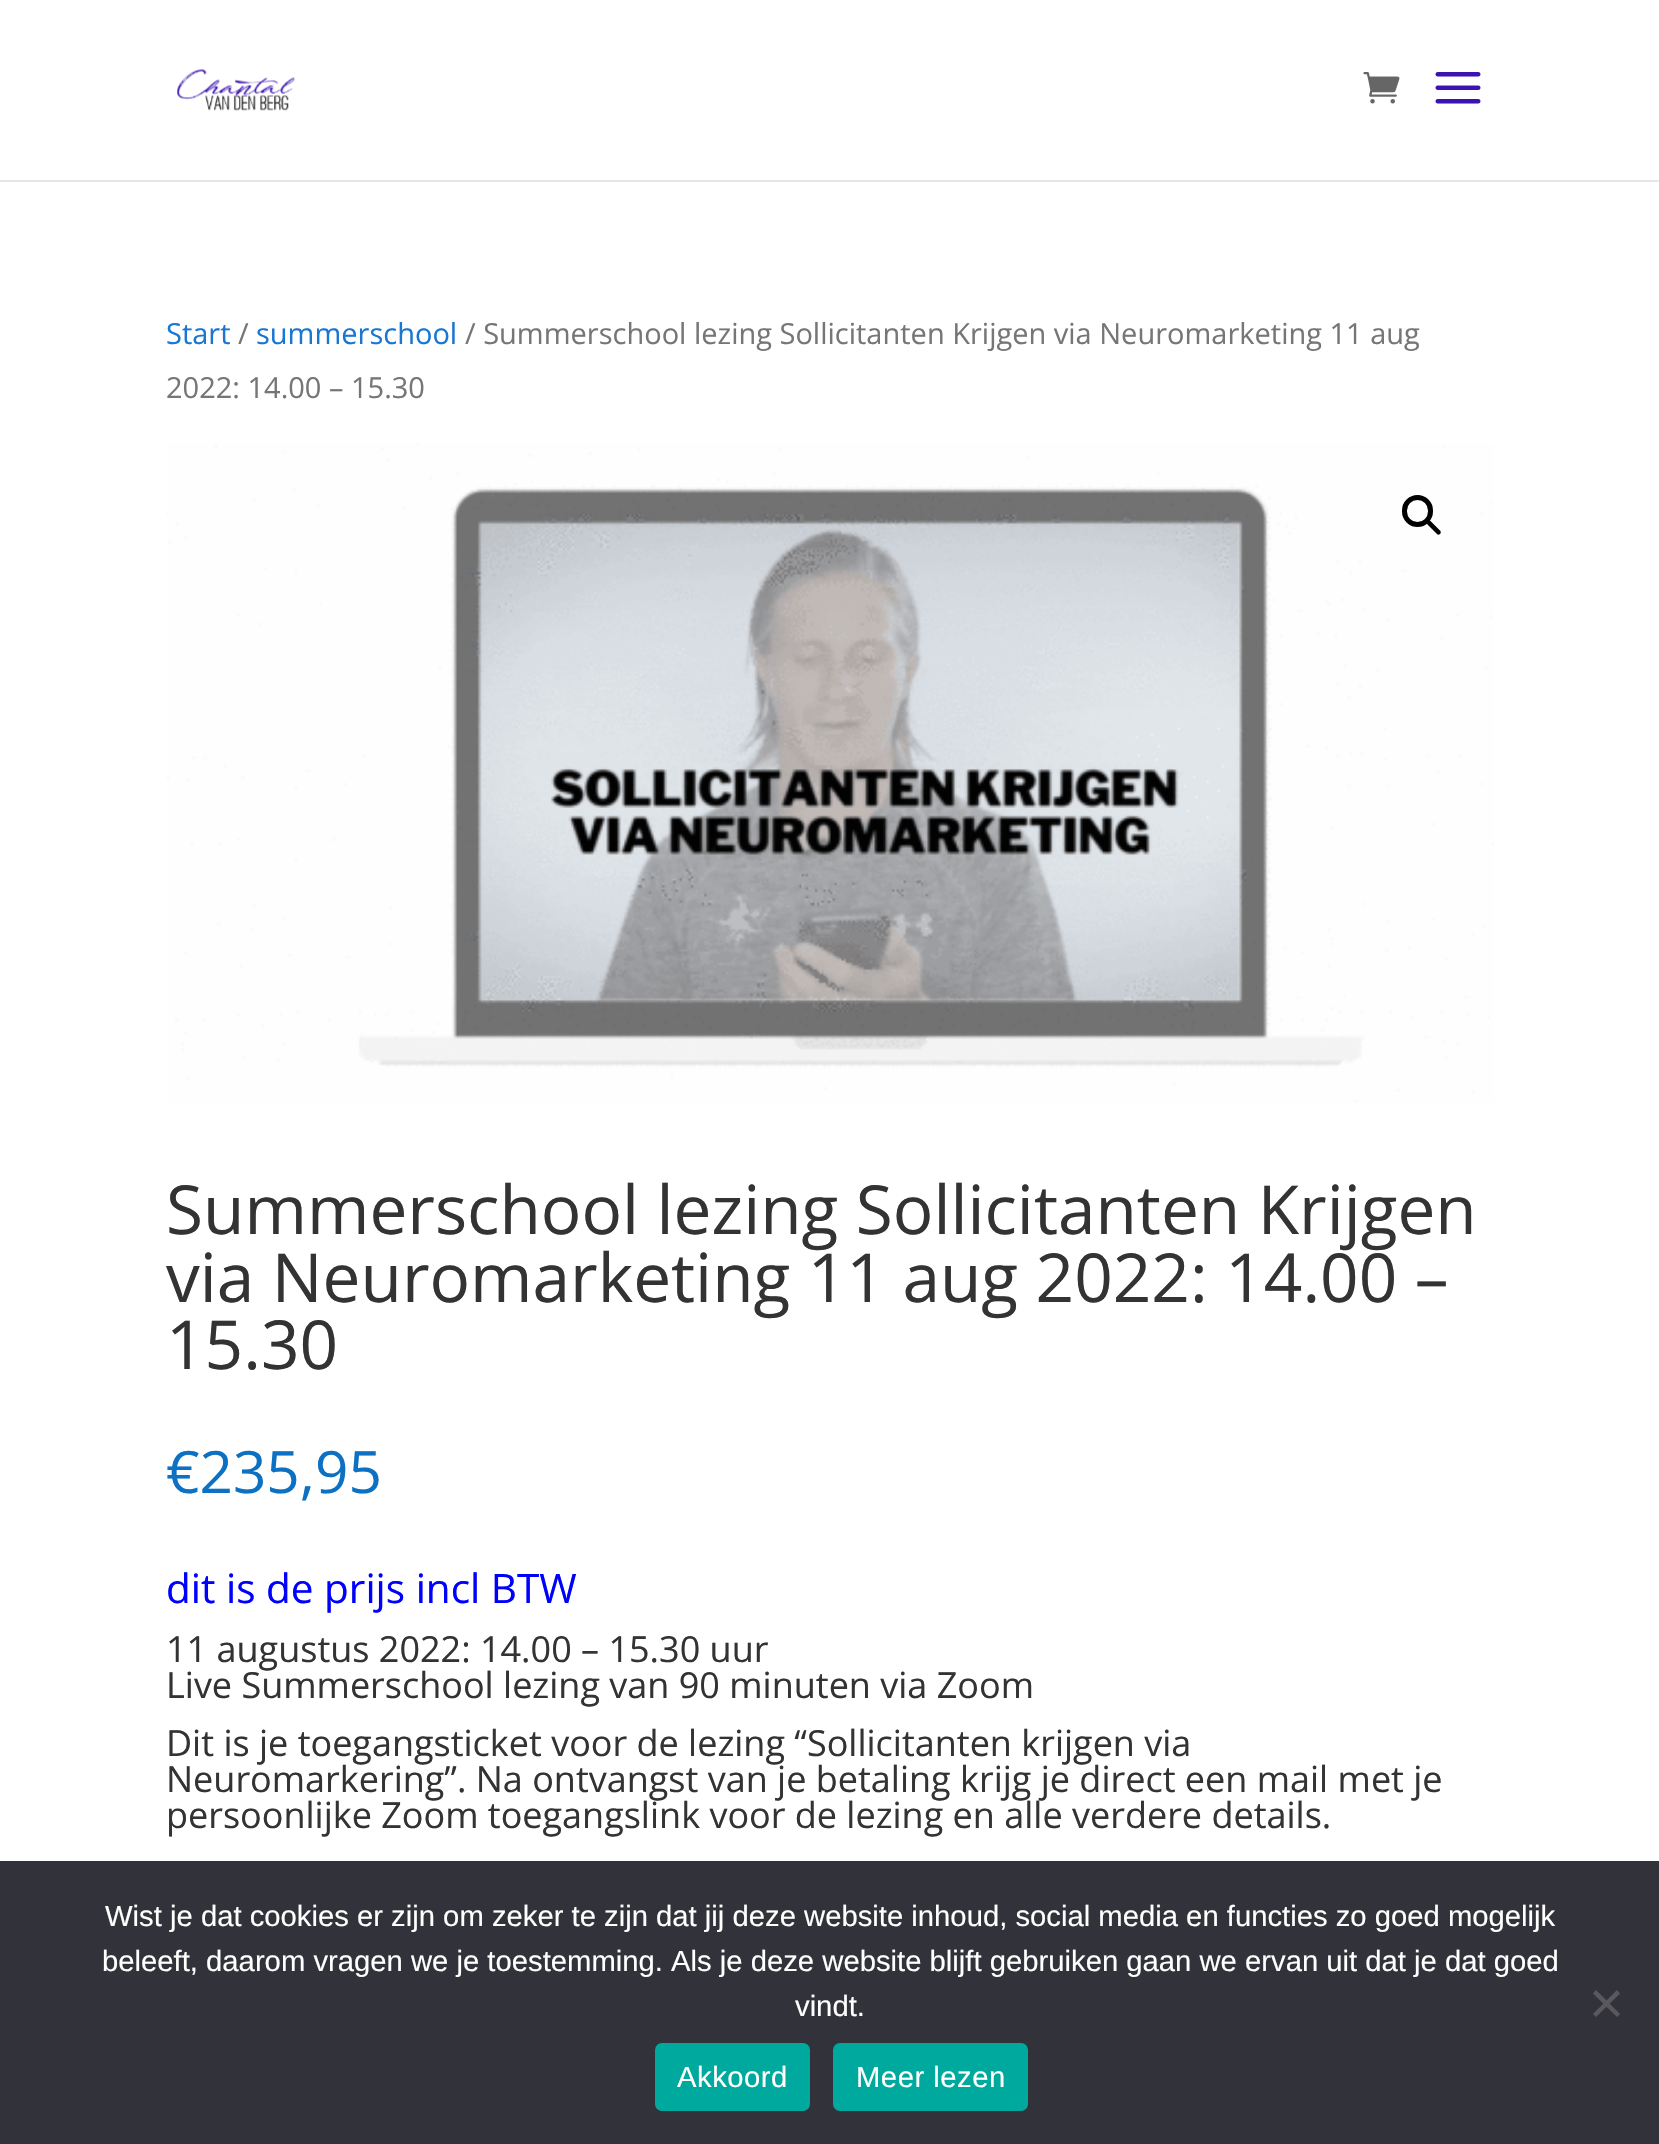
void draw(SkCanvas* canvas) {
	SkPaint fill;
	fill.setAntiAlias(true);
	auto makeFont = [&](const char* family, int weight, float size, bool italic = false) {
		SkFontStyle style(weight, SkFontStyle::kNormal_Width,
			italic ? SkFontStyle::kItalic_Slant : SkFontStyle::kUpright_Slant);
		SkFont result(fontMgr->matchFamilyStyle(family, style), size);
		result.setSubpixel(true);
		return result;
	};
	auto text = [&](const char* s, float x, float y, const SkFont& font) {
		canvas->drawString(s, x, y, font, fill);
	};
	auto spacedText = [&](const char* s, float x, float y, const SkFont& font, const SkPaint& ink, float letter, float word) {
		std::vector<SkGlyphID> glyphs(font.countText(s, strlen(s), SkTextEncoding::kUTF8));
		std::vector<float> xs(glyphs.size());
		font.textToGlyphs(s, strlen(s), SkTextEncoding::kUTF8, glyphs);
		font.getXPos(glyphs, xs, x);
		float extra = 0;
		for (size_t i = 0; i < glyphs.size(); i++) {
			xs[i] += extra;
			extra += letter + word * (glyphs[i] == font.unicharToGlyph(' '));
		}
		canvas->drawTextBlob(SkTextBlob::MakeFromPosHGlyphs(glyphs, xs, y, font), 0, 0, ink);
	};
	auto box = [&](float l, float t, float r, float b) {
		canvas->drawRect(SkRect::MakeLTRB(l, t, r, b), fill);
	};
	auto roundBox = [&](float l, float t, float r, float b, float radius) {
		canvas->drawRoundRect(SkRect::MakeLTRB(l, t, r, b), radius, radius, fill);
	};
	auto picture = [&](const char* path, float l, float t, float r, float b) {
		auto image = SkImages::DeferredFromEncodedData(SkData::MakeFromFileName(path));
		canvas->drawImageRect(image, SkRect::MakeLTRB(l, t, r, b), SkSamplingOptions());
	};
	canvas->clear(0xFFFFFFFF);
	fill.setColor(0xFFE6E6E6);
	canvas->drawPath(SkPathBuilder().moveTo(0, 180).lineTo(0, 182).lineTo(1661, 182).lineTo(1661, 2).lineTo(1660, 2).lineTo(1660, 180).close().detach(), fill);
	picture("image0.png", 177, 69, 295, 111);
	picture("image1.png", 1363, 72, 1400, 104);
	picture("image2.png", 1435, 72, 1481, 104);
	picture("image3.png", 167, 443, 1494, 1103);
	fill.setStyle(SkPaint::kStroke_Style);
	fill.setStrokeWidth(5);
	fill.setColor(0xFF000000);
	canvas->drawRoundRect(SkRect::MakeLTRB(1404.5f, 497.5f, 1430.5f, 524.5f), 13, 13, fill);
	fill.setStyle(SkPaint::kFill_Style);
	canvas->drawPath(SkPathBuilder().moveTo(1427.5f, 521).cubicTo(1428, 520.5f, 1429.5f, 520.5f, 1430.5f, 521).lineTo(1440, 530.5f).cubicTo(1441, 531.5f, 1441, 533, 1440, 534).cubicTo(1439, 535, 1437.5f, 535, 1437, 534).lineTo(1427.5f, 524.5f).cubicTo(1426.5f, 523.5f, 1426.5f, 522, 1427.5f, 521).close().detach(), fill);
	fill.setColor(0xFF32323A);
	box(0, 1861, 1659, 2144);
	fill.setColor(0xFF59595D);
	canvas->drawPath(SkPathBuilder().moveTo(1617, 1990).lineTo(1620, 1993.5f).lineTo(1596, 2017).lineTo(1593, 2014).close().detach(), fill);
	canvas->drawPath(SkPathBuilder().moveTo(1593, 1993.5f).lineTo(1596, 1990).lineTo(1620, 2014).lineTo(1617, 2017).close().detach(), fill);
	fill.setColor(0xFF00A99D);
	roundBox(655, 2043, 810, 2111, 7);
	roundBox(833, 2043, 1028, 2111, 7);
	auto font1 = makeFont("Open Sans", 400, 29);
	fill.setColor(0xFF1976D2);
	text("Start", 166, 344, font1);
	fill.setColor(0xFF767676);
	text("/", 238, 344, font1);
	fill.setColor(0xFF1976D2);
	text("summerschool", 256, 344, font1);
	fill.setColor(0xFF767676);
	text("/ Summerschool lezing Sollicitanten Krijgen via Neuromarketing 11 aug", 465, 344, font1);
	text("2022: 14.00 – 15.30", 166, 398, font1);
	auto font2 = makeFont("Open Sans", 400, 67.5f);
	fill.setColor(0xFF333333);
	text("Summerschool lezing Sollicitanten Krijgen", 166, 1234, font2);
	text("via Neuromarketing 11 aug 2022: 14.00 –", 166, 1302, font2);
	text("15.30", 166, 1369, font2);
	auto font3 = makeFont("Open Sans", 400, 58.5f);
	fill.setColor(0xFF0C71C3);
	text("€235,95", 166, 1493, font3);
	auto font4 = makeFont("Open Sans", 400, 40.5f);
	fill.setColor(0xFF0000FF);
	text("dit is de prijs incl BTW", 166, 1603, font4);
	auto font5 = makeFont("Open Sans", 400, 36);
	fill.setColor(0xFF333333);
	text("11 augustus 2022: 14.00 – 15.30 uur", 166, 1662, font5);
	text("Live Summerschool lezing van 90 minuten via Zoom", 166, 1698, font5);
	text("Dit is je toegangsticket voor de lezing “Sollicitanten krijgen via", 166, 1756, font5);
	text("Neuromarkering”. Na ontvangst van je betaling krijg je direct een mail met je", 166, 1792, font5);
	text("persoonlijke Zoom toegangslink voor de lezing en alle verdere details.", 166, 1828, font5);
	auto font6 = makeFont("Liberation Sans", 400, 29.25f);
	fill.setColor(0xFFFFFFFF);
	text("Wist je dat cookies er zijn om zeker te zijn dat jij deze website inhoud, social media en functies zo goed mogelijk", 105, 1926, font6);
	text("beleeft, daarom vragen we je toestemming. Als je deze website blijft gebruiken gaan we ervan uit dat je dat goed", 102, 1971, font6);
	text("vindt.", 795, 2016, font6);
	spacedText("Akkoord", 677, 2087, font6, fill, 0.5f, 0);
	spacedText("Meer lezen", 856, 2087, font6, fill, 0.5f, 0);
}
